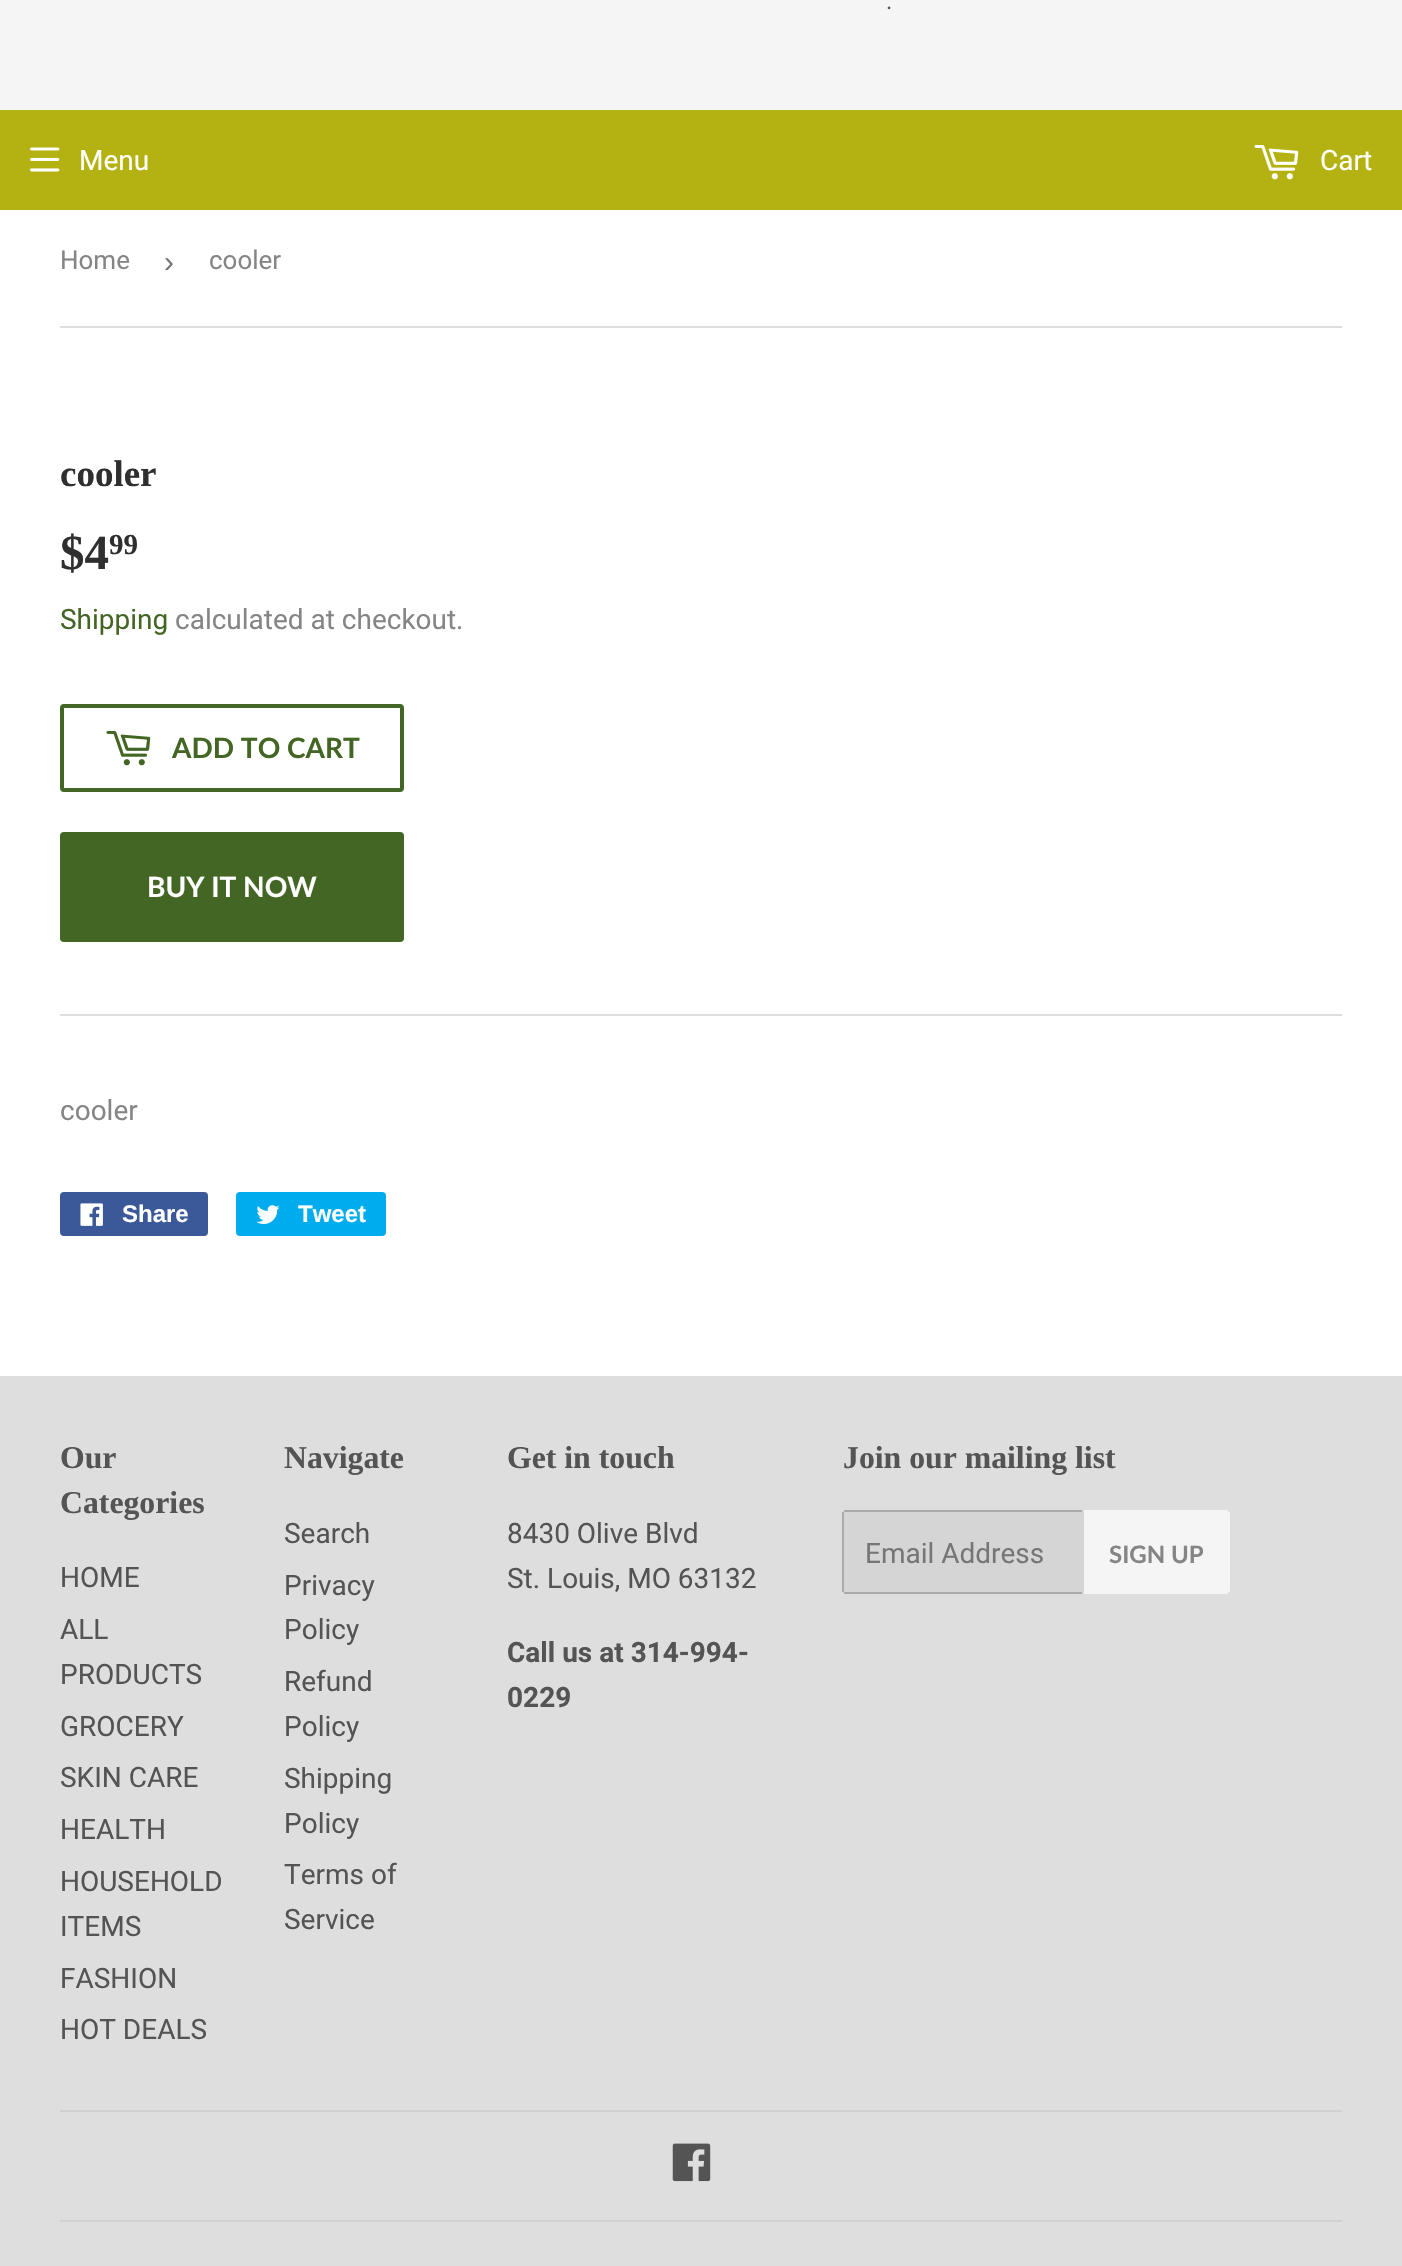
void draw(SkCanvas* canvas) {
	SkPaint fill;
	fill.setAntiAlias(true);
	auto makeFont = [&](const char* family, int weight, float size, bool italic = false) {
		SkFontStyle style(weight, SkFontStyle::kNormal_Width,
			italic ? SkFontStyle::kItalic_Slant : SkFontStyle::kUpright_Slant);
		SkFont result(fontMgr->matchFamilyStyle(family, style), size);
		result.setSubpixel(true);
		return result;
	};
	auto text = [&](const char* s, float x, float y, const SkFont& font) {
		canvas->drawString(s, x, y, font, fill);
	};
	auto box = [&](float l, float t, float r, float b) {
		canvas->drawRect(SkRect::MakeLTRB(l, t, r, b), fill);
	};
	auto roundBox = [&](float l, float t, float r, float b, float radius) {
		canvas->drawRoundRect(SkRect::MakeLTRB(l, t, r, b), radius, radius, fill);
	};
	auto picture = [&](const char* path, float l, float t, float r, float b) {
		auto image = SkImages::DeferredFromEncodedData(SkData::MakeFromFileName(path));
		canvas->drawImageRect(image, SkRect::MakeLTRB(l, t, r, b), SkSamplingOptions());
	};
	canvas->clear(0xFFFFFFFF);
	fill.setColor(0xFFF5F5F5);
	box(0, 0, 1402, 110);
	fill.setColor(0xFFB4B213);
	box(0, 110, 1402, 210);
	picture("image0.png", 30, 147, 60, 172);
	picture("image1.png", 1254, 145, 1299, 180);
	fill.setColor(0xFFDEDEDE);
	box(60, 326, 1342, 328);
	fill.setStyle(SkPaint::kStroke_Style);
	fill.setStrokeWidth(4);
	fill.setColor(0xFF436625);
	canvas->drawRoundRect(SkRect::MakeLTRB(62, 706, 402, 790), 2, 2, fill);
	picture("image2.png", 106, 731, 151, 766);
	fill.setStyle(SkPaint::kFill_Style);
	roundBox(60, 832, 404, 942, 4);
	fill.setColor(0xFFDEDEDE);
	box(60, 1014, 1342, 1016);
	fill.setColor(0xFF3B5998);
	roundBox(60, 1192, 208, 1236, 4);
	picture("image3.png", 80, 1203, 103, 1226);
	fill.setColor(0xFF00ACED);
	roundBox(236, 1192, 386, 1236, 4);
	picture("image4.png", 256, 1205, 280, 1224);
	fill.setColor(0xFFDEDEDE);
	box(0, 1376, 1402, 2266);
	fill.setColor(0xFFD5D5D5);
	roundBox(842, 1510, 1084, 1594, 4);
	fill.setColor(0xFFABABAB);
	box(844, 1510, 1082, 1512);
	box(844, 1592, 1082, 1594);
	box(842, 1512, 844, 1592);
	fill.setColor(0xFFF5F5F5);
	canvas->drawPath(SkPathBuilder().moveTo(1084, 1510).lineTo(1226, 1510).cubicTo(1228, 1510, 1230, 1512, 1230, 1514).lineTo(1230, 1590).cubicTo(1230, 1592, 1228, 1594, 1226, 1594).lineTo(1084, 1594).close().detach(), fill);
	fill.setColor(0xFFD1D1D1);
	box(60, 2110, 1342, 2112);
	picture("image5.png", 672, 2143, 711, 2182);
	box(60, 2220, 1342, 2222);
	auto font1 = makeFont("Roboto", 400, 24);
	fill.setColor(0xFF545454);
	text(".", 886, 9, font1);
	auto font2 = makeFont("Roboto", 400, 28);
	fill.setColor(0xFFFFFFFF);
	text("Menu", 79, 170, font2);
	text("Cart", 1320, 170, font2);
	auto font3 = makeFont("Roboto", 400, 26);
	fill.setColor(0xFF858585);
	text("Home", 60, 269, font3);
	auto font4 = makeFont("Liberation Sans", 400, 30);
	fill.setColor(0xFF767676);
	text("›", 164, 272, font4);
	fill.setColor(0xFF858585);
	text("cooler", 209, 269, font3);
	auto font5 = makeFont("Liberation Serif", 700, 37);
	fill.setColor(0xFF2F2F2F);
	text("cooler", 60, 486, font5);
	auto font6 = makeFont("Liberation Serif", 700, 49);
	text("$4", 60, 569, font6);
	auto font7 = makeFont("Liberation Serif", 700, 29);
	text("99", 109, 554, font7);
	fill.setColor(0xFF436625);
	text("Shipping", 60, 629, font2);
	fill.setColor(0xFF858585);
	text("calculated at checkout.", 175, 629, font2);
	auto font8 = makeFont("Lato", 700, 28);
	fill.setColor(0xFF436625);
	text("ADD TO CART", 172, 758, font8);
	fill.setColor(0xFFFFFFFF);
	text("BUY IT NOW", 147, 897, font8);
	fill.setColor(0xFF858585);
	text("cooler", 60, 1120, font2);
	auto font9 = makeFont("Liberation Sans", 700, 24);
	fill.setColor(0xFFFFFFFF);
	text("Share", 122, 1222, font9);
	text("Tweet", 298, 1222, font9);
	auto font10 = makeFont("Liberation Serif", 700, 31.75f);
	fill.setColor(0xFF545454);
	text("Our", 60, 1468, font10);
	text("Categories", 60, 1513, font10);
	text("HOME", 60, 1587, font2);
	text("ALL", 60, 1639, font2);
	text("PRODUCTS", 60, 1684, font2);
	text("GROCERY", 60, 1736, font2);
	text("SKIN CARE", 60, 1787, font2);
	text("HEALTH", 60, 1839, font2);
	text("HOUSEHOLD", 60, 1891, font2);
	text("ITEMS", 60, 1936, font2);
	text("FASHION", 60, 1988, font2);
	text("HOT DEALS", 60, 2039, font2);
	text("Navigate", 284, 1468, font10);
	text("Search", 284, 1543, font2);
	text("Privacy", 284, 1595, font2);
	text("Policy", 284, 1639, font2);
	text("Refund", 284, 1691, font2);
	text("Policy", 284, 1736, font2);
	text("Shipping", 284, 1788, font2);
	text("Policy", 284, 1833, font2);
	text("Terms of", 284, 1884, font2);
	text("Service", 284, 1929, font2);
	text("Get in touch", 507, 1468, font10);
	text("8430 Olive Blvd", 507, 1543, font2);
	text("St. Louis, MO 63132", 507, 1588, font2);
	auto font11 = makeFont("Roboto", 700, 28);
	text("Call us at 314-994-", 507, 1662, font11);
	text("0229", 507, 1707, font11);
	text("Join our mailing list", 843, 1468, font10);
	fill.setColor(0xFF767676);
	text("Email Address", 865, 1563, font2);
	auto font12 = makeFont("Lato", 700, 24);
	fill.setColor(0xFF858585);
	text("SIGN UP", 1109, 1563, font12);
}
